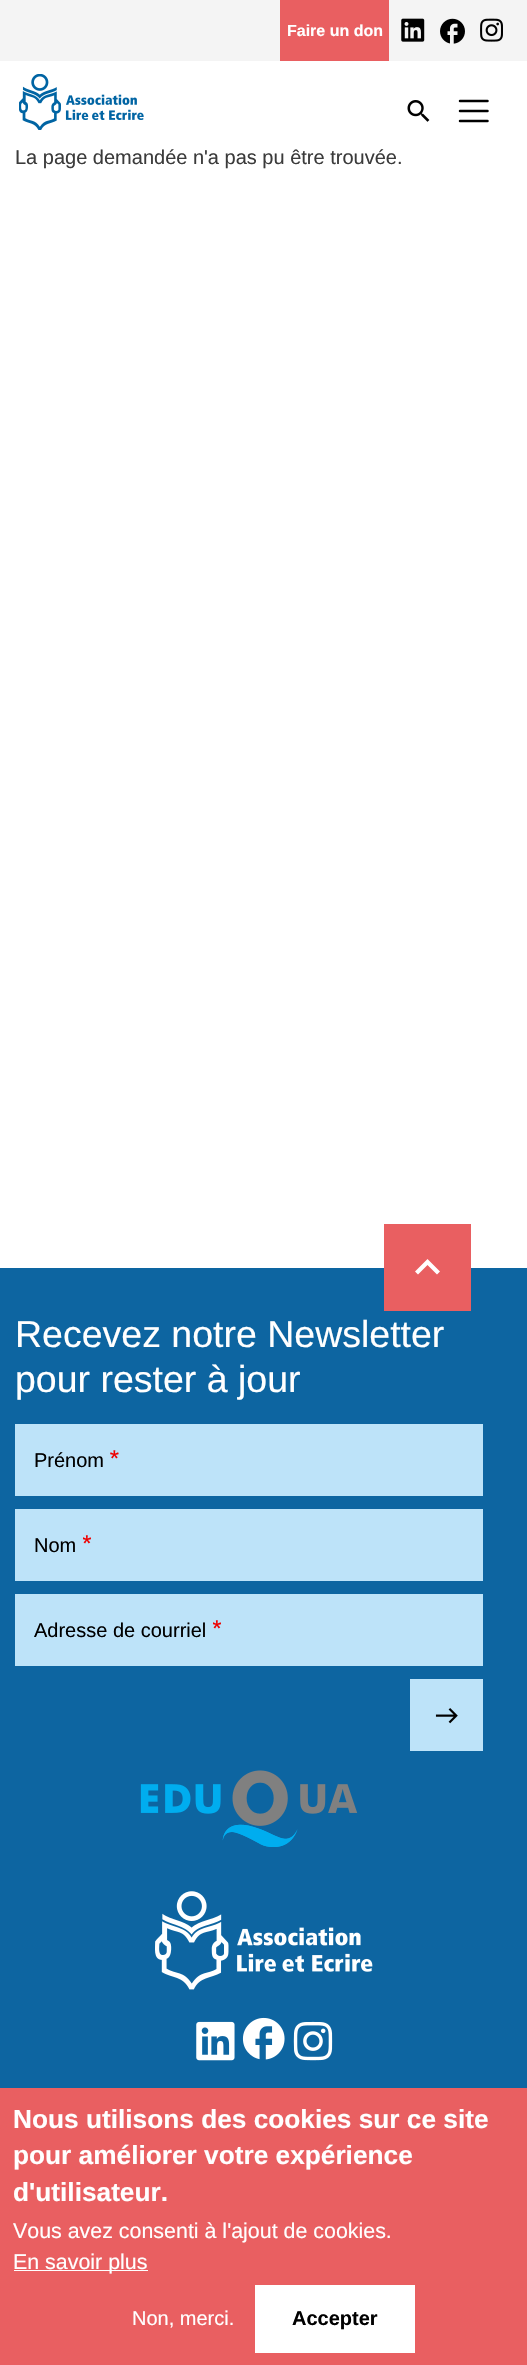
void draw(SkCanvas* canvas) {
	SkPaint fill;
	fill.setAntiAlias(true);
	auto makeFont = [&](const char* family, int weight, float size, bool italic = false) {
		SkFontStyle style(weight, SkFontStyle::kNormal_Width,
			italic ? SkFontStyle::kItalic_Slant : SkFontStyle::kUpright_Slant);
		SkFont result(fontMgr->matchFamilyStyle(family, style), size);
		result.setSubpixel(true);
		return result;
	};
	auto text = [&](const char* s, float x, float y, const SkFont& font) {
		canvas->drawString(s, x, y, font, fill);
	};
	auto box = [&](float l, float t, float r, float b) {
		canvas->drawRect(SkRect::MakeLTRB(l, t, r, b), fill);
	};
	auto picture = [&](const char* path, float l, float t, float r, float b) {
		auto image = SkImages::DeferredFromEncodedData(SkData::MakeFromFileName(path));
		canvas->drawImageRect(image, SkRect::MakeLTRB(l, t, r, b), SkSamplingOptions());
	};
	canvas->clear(0xFFFFFFFF);
	fill.setColor(0xFFF4F4F4);
	box(0, 0, 527, 61);
	fill.setColor(0xFFE95F61);
	box(280, 0, 389, 61);
	picture("image0.png", 401, 18, 425, 42);
	picture("image1.png", 440, 18, 465, 44);
	picture("image2.png", 480, 18, 503, 42);
	picture("image3.png", 19, 74, 144, 130);
	picture("image4.png", 407, 100, 430, 122);
	fill.setStyle(SkPaint::kStroke_Style);
	fill.setStrokeWidth(2.5f);
	fill.setStrokeCap(SkPaint::kRound_Cap);
	fill.setColor(0xFF000000);
	canvas->drawPath(SkPathBuilder().moveTo(460, 101).lineTo(487.5f, 101).moveTo(460, 111).lineTo(487.5f, 111).moveTo(460, 121).lineTo(487.5f, 121).detach(), fill);
	fill.setStyle(SkPaint::kFill_Style);
	fill.setColor(0xFF0D65A1);
	box(0, 1268, 527, 2088);
	fill.setColor(0xFFE95F61);
	box(384, 1224, 471, 1311);
	fill.setColor(0xFFFFFFFF);
	canvas->drawPath(SkPathBuilder().moveTo(427.5f, 1259).lineTo(415, 1271.5f).lineTo(418, 1274.5f).lineTo(427.5f, 1265).lineTo(437, 1274.5f).lineTo(440, 1271.5f).close().detach(), fill);
	fill.setColor(0xFFBDE3F9);
	box(15, 1424, 483, 1496);
	picture("image5.png", 110, 1450, 119, 1459);
	box(15, 1509, 483, 1581);
	picture("image6.png", 83, 1535, 91, 1544);
	box(15, 1594, 483, 1666);
	picture("image6.png", 213, 1620, 221, 1629);
	box(410, 1679, 483, 1751);
	picture("image7.png", 435, 1708, 458, 1724);
	picture("image8.png", 140, 1770, 358, 1847);
	picture("image9.png", 155, 1891, 373, 1990);
	picture("image10.png", 196, 2021, 235, 2061);
	picture("image11.png", 242, 2017, 285, 2060);
	picture("image12.png", 293, 2021, 333, 2061);
	fill.setColor(0xFFE95F61);
	box(0, 2088, 527, 2365);
	fill.setColor(0xFFFFFFFF);
	box(14, 2270, 148, 2271);
	box(255, 2285, 415, 2353);
	auto font1 = makeFont("Liberation Sans", 700, 16);
	text("Faire un don", 287, 36, font1);
	auto font2 = makeFont("Liberation Sans", 400, 20);
	fill.setColor(0xFF3B3B3B);
	text("La page demandée n'a pas pu être trouvée.", 15, 164, font2);
	auto font3 = makeFont("Liberation Sans", 400, 37.5f);
	fill.setColor(0xFFFFFFFF);
	text("Recevez notre Newsletter", 15, 1347, font3);
	text("pour rester à jour", 15, 1392, font3);
	fill.setColor(0xFF000000);
	text("Prénom", 34, 1467, font2);
	text("Nom", 34, 1552, font2);
	text("Adresse de courriel", 34, 1637, font2);
	auto font4 = makeFont("Liberation Sans", 700, 26.25f);
	fill.setColor(0xFFFFFFFF);
	text("Nous utilisons des cookies sur ce site", 13, 2128, font4);
	text("pour améliorer votre expérience", 13, 2164, font4);
	text("d'utilisateur.", 13, 2201, font4);
	auto font5 = makeFont("Liberation Sans", 400, 21.4f);
	text("Vous avez consenti à l'ajout de cookies.", 13, 2238, font5);
	text("En savoir plus", 13, 2269, font5);
	text("Non, merci.", 132, 2325, font2);
	auto font6 = makeFont("Liberation Sans", 700, 20);
	fill.setColor(0xFF000000);
	text("Accepter", 292, 2325, font6);
}
